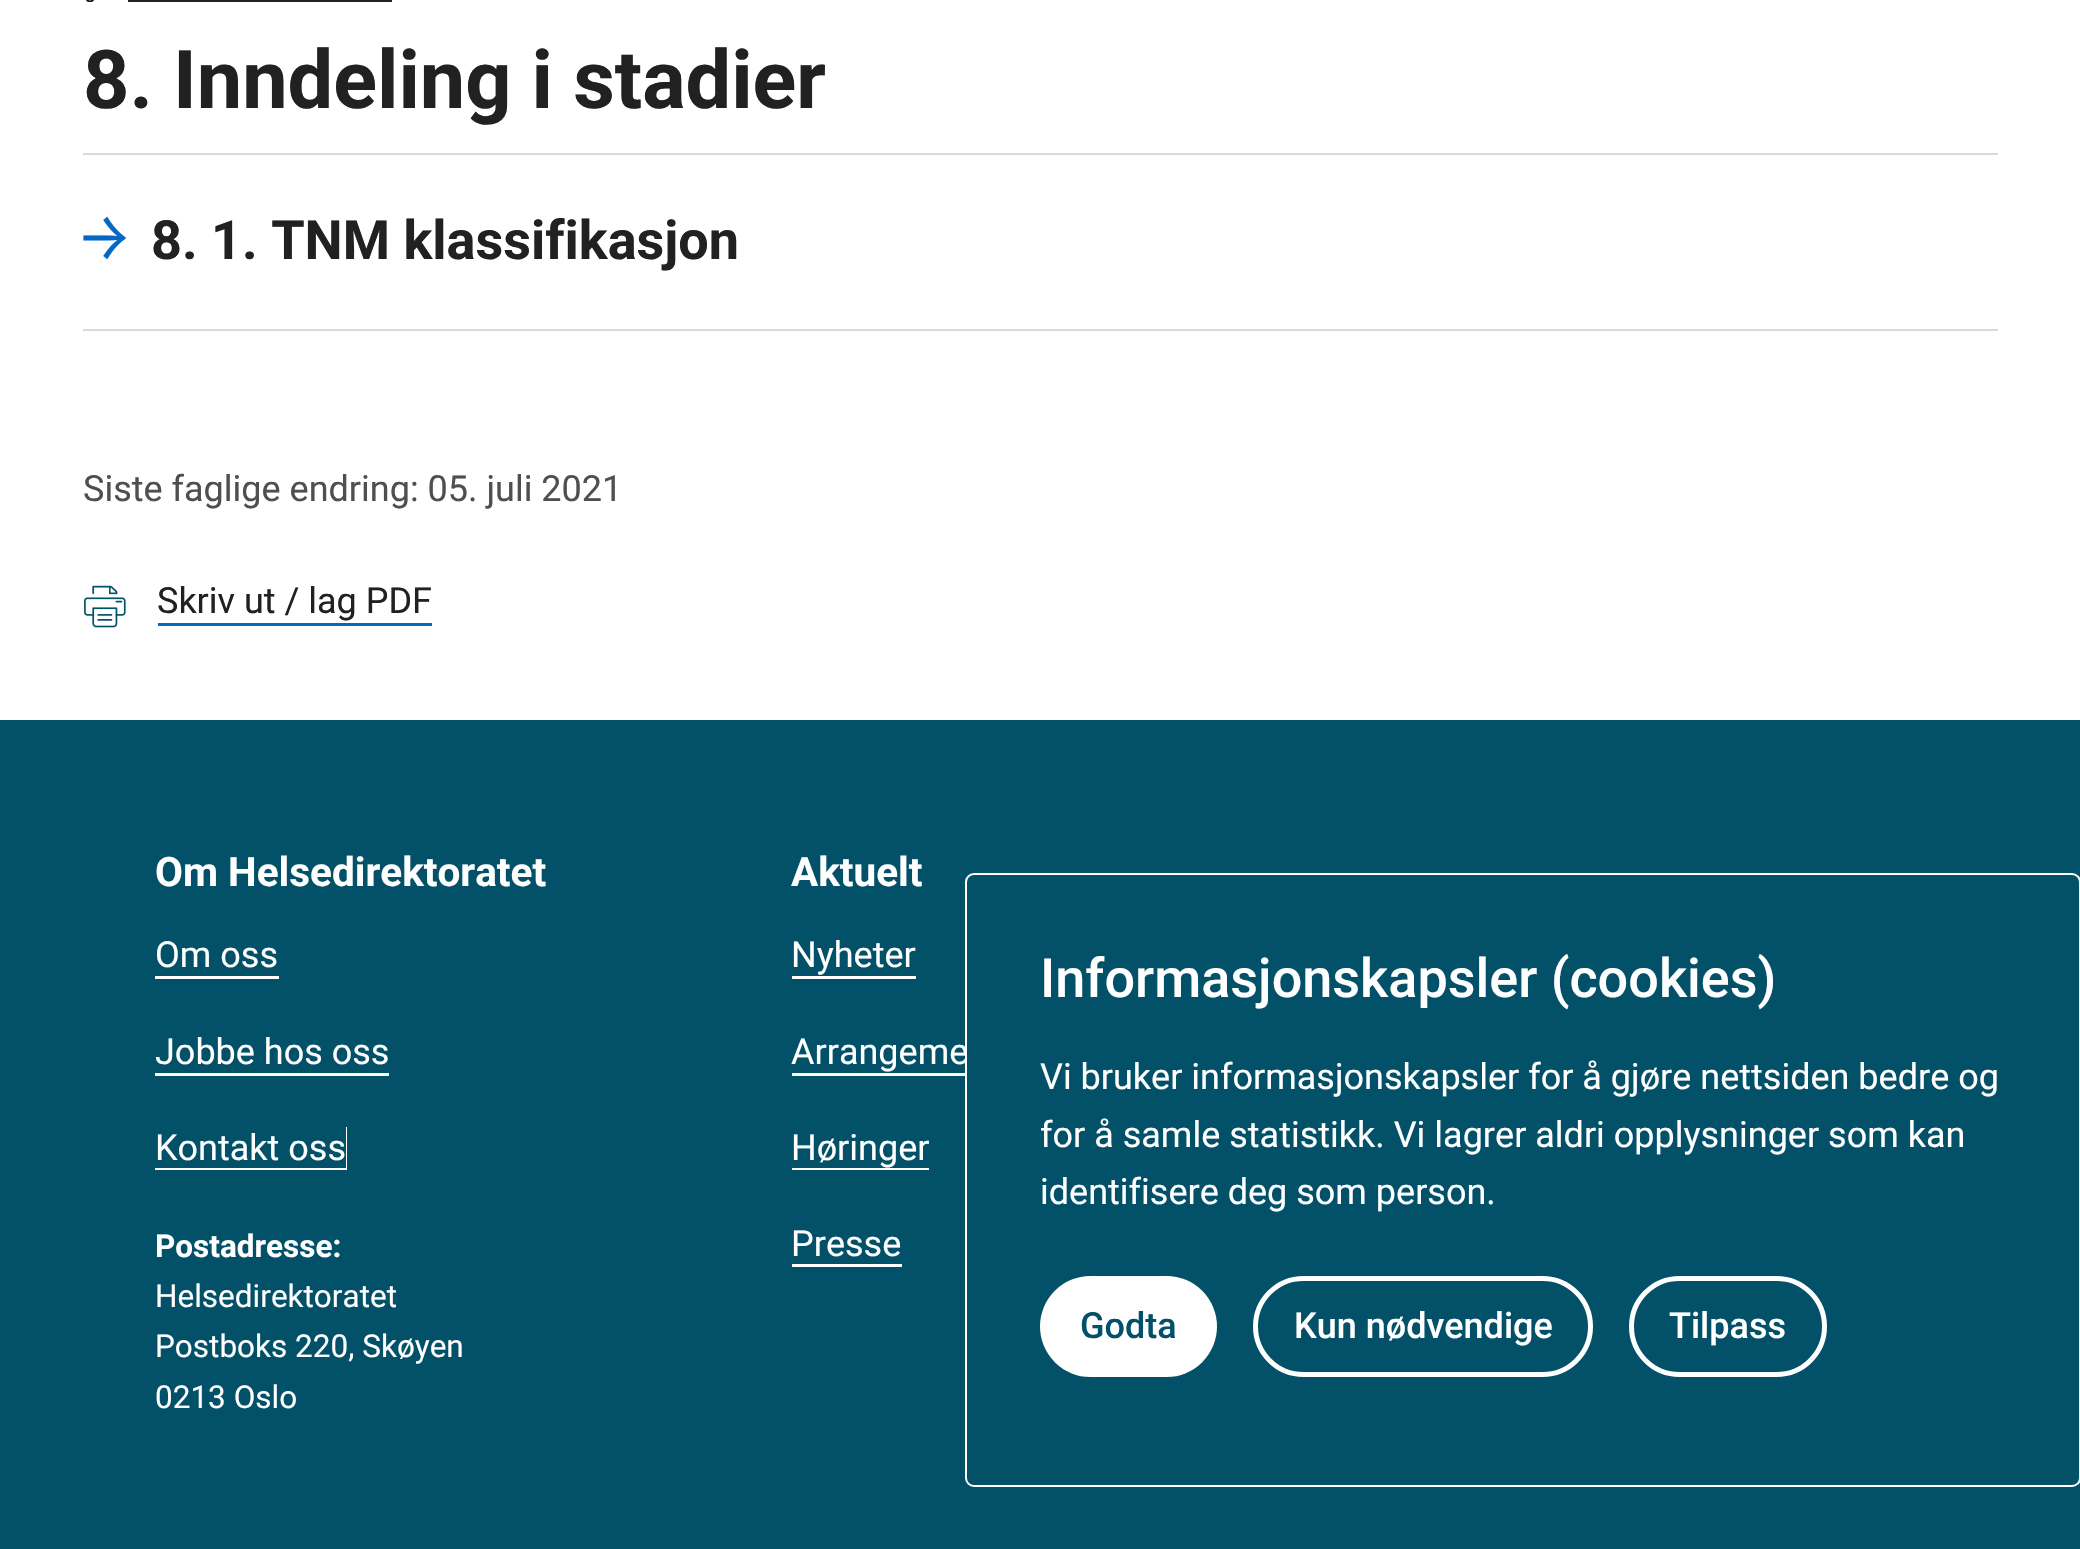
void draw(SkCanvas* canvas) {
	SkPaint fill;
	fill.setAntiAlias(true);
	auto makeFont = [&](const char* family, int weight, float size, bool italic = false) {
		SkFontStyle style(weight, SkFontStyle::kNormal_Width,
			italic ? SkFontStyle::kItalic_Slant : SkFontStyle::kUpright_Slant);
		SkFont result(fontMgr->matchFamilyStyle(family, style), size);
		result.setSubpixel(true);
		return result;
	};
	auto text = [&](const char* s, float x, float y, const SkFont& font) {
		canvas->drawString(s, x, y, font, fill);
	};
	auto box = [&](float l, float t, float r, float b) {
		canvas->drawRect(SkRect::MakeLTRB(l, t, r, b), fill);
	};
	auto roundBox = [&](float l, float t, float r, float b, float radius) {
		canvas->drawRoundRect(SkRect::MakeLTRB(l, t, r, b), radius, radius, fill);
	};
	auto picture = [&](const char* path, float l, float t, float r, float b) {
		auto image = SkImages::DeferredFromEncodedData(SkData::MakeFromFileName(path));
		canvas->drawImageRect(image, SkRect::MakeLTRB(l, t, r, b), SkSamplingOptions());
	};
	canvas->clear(0xFFFFFFFF);
	picture("image0.png", 86, 0, 94, 2);
	fill.setColor(0xFF212121);
	box(128, 0, 392, 2);
	fill.setColor(0xFFD8DADA);
	box(83, 153, 1998, 155);
	box(83, 329, 1998, 331);
	picture("image1.png", 83, 216, 126, 259);
	picture("image2.png", 84, 585, 126, 628);
	fill.setColor(0xFF0667C6);
	box(158, 623, 432, 626);
	fill.setColor(0xFF025169);
	box(0, 720, 2080, 1549);
	fill.setColor(0xFFFFFFFF);
	canvas->drawPath(SkPathBuilder().moveTo(155, 936).lineTo(155, 979).lineTo(279, 979).lineTo(279, 976).lineTo(155, 976).close().detach(), fill);
	canvas->drawPath(SkPathBuilder().moveTo(155, 1033).lineTo(155, 1076).lineTo(389, 1076).lineTo(389, 1073).lineTo(155, 1073).close().detach(), fill);
	canvas->drawPath(SkPathBuilder().moveTo(155, 1127).lineTo(155, 1170).lineTo(347, 1170).lineTo(347, 1127).lineTo(346, 1127).lineTo(346, 1168).lineTo(155, 1168).close().detach(), fill);
	canvas->drawPath(SkPathBuilder().moveTo(792, 976).lineTo(792, 979).lineTo(916, 979).lineTo(916, 936).lineTo(916, 976).close().detach(), fill);
	canvas->drawPath(SkPathBuilder().moveTo(792, 1073).lineTo(792, 1076).lineTo(1031, 1076).lineTo(1031, 1033).lineTo(1030, 1033).lineTo(1030, 1073).close().detach(), fill);
	box(792, 1168, 929, 1170);
	box(792, 1264, 902, 1267);
	auto font1 = makeFont("Roboto", 700, 81);
	fill.setColor(0xFF212121);
	text("8. Inndeling i stadier", 83, 108, font1);
	auto font2 = makeFont("Roboto", 700, 54);
	text("8. 1. TNM klassifikasjon", 151, 259, font2);
	auto font3 = makeFont("Roboto", 400, 36);
	fill.setColor(0xFF504F4F);
	text("Siste faglige endring: 05. juli 2021", 83, 501, font3);
	fill.setColor(0xFF212121);
	text("Skriv ut / lag PDF", 157, 613, font3);
	auto font4 = makeFont("Roboto", 700, 40.5f);
	fill.setColor(0xFFFFFFFF);
	text("Om Helsedirektoratet", 155, 886, font4);
	text("Om oss", 155, 967, font3);
	text("Jobbe hos oss", 155, 1064, font3);
	text("Kontakt oss", 155, 1160, font3);
	auto font5 = makeFont("Roboto", 700, 31.5f);
	text("Postadresse:", 155, 1257, font5);
	auto font6 = makeFont("Roboto", 400, 31.5f);
	text("Helsedirektoratet", 155, 1307, font6);
	text("Postboks 220, Skøyen", 155, 1357, font6);
	text("0213 Oslo", 155, 1408, font6);
	text("Aktuelt", 791, 886, font4);
	text("Nyheter", 791, 967, font3);
	text("Arrangeme", 791, 1064, font3);
	text("Høringer", 791, 1160, font3);
	text("Presse", 791, 1256, font3);
	fill.setColor(0xFF025169);
	canvas->drawRoundRect(SkRect::MakeLTRB(966, 874, 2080, 1486), 8, 8, fill);
	fill.setStyle(SkPaint::kStroke_Style);
	fill.setStrokeWidth(2);
	fill.setColor(0xFFFFFFFF);
	canvas->drawRoundRect(SkRect::MakeLTRB(966, 874, 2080, 1486), 8, 8, fill);
	auto font7 = makeFont("Roboto", 500, 54);
	fill.setStyle(SkPaint::kFill_Style);
	text("Informasjonskapsler (cookies)", 1040, 997, font7);
	text("Vi bruker informasjonskapsler for å gjøre nettsiden bedre og", 1040, 1089, font3);
	text("for å samle statistikk. Vi lagrer aldri opplysninger som kan", 1040, 1147, font3);
	text("identifisere deg som person.", 1040, 1204, font3);
	roundBox(1040, 1276, 1217, 1377, 50.5f);
	auto font8 = makeFont("Roboto", 500, 36);
	fill.setColor(0xFF025169);
	text("Godta", 1080, 1338, font8);
	fill.setStyle(SkPaint::kStroke_Style);
	fill.setStrokeWidth(5);
	fill.setColor(0xFFFFFFFF);
	canvas->drawRoundRect(SkRect::MakeLTRB(1255.5f, 1278.5f, 1590.5f, 1374.5f), 48, 48, fill);
	fill.setStyle(SkPaint::kFill_Style);
	text("Kun nødvendige", 1294, 1338, font8);
	fill.setStyle(SkPaint::kStroke_Style);
	canvas->drawRoundRect(SkRect::MakeLTRB(1631.5f, 1278.5f, 1824.5f, 1374.5f), 48, 48, fill);
	fill.setStyle(SkPaint::kFill_Style);
	text("Tilpass", 1669, 1338, font8);
}
